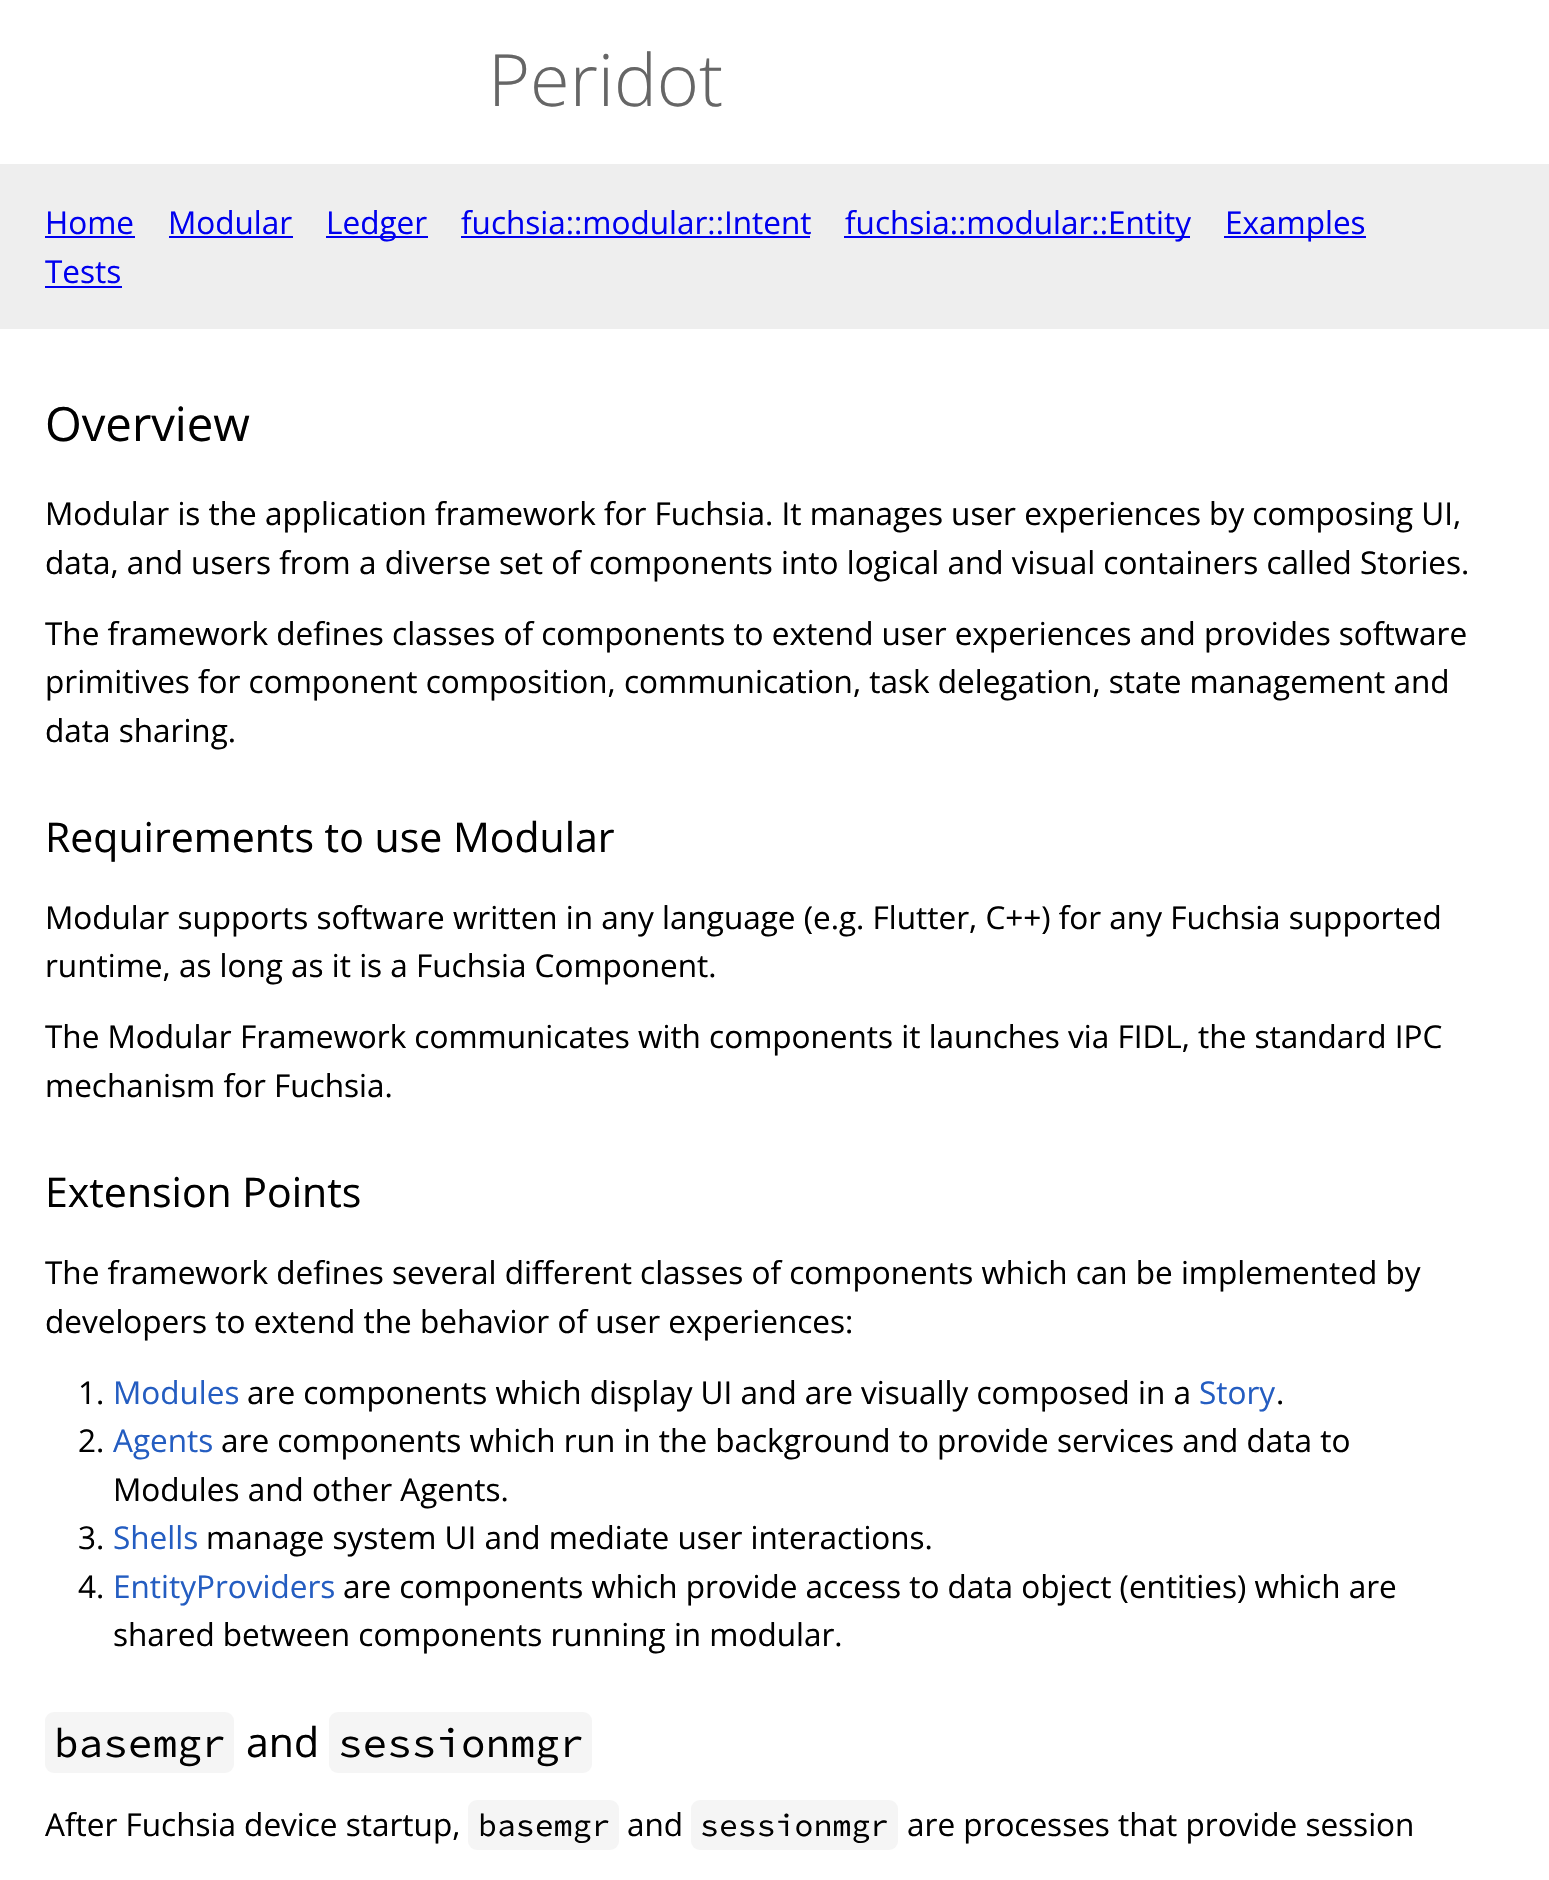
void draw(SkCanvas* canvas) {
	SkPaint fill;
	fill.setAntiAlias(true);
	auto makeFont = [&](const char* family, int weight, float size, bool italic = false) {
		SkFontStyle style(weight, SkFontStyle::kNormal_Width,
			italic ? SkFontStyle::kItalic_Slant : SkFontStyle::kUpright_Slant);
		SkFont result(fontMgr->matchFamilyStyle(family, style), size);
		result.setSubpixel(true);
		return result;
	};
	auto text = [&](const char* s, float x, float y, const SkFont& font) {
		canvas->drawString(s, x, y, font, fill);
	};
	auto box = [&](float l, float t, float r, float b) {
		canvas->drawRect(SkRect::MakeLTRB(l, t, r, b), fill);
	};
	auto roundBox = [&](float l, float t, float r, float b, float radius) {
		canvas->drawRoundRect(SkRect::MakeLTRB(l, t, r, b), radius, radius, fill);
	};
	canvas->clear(0xFFFFFFFF);
	fill.setColor(0xFFEEEEEE);
	box(0, 164, 1549, 329);
	fill.setColor(0xFF0000EE);
	box(45, 236, 135, 238);
	box(169, 236, 293, 238);
	box(326, 236, 428, 238);
	box(461, 236, 810, 238);
	box(844, 236, 1190, 238);
	box(1224, 236, 1366, 238);
	box(45, 286, 122, 288);
	fill.setColor(0xFFF5F5F5);
	roundBox(45, 1712, 234, 1773, 9);
	roundBox(329, 1712, 592, 1773, 9);
	roundBox(468, 1800, 619, 1850, 9);
	roundBox(691, 1800, 898, 1850, 9);
	auto font1 = makeFont("Open Sans", 300, 72);
	fill.setColor(0xFF666666);
	text("Peridot", 488, 106, font1);
	auto font2 = makeFont("Open Sans", 400, 31.5f);
	fill.setColor(0xFF0000EE);
	text("Home", 45, 234, font2);
	text("Modular", 168, 234, font2);
	text("Ledger", 326, 234, font2);
	text("fuchsia::modular::Intent", 461, 234, font2);
	text("fuchsia::modular::Entity", 845, 234, font2);
	text("Examples", 1225, 234, font2);
	text("Tests", 45, 283, font2);
	auto font3 = makeFont("Open Sans", 400, 47.25f);
	fill.setColor(0xFF000000);
	text("Overview", 45, 441, font3);
	text("Modular is the application framework for Fuchsia. It manages user experiences by composing UI,", 45, 525, font2);
	text("data, and users from a diverse set of components into logical and visual containers called Stories.", 45, 574, font2);
	text("The framework defines classes of components to extend user experiences and provides software", 45, 645, font2);
	text("primitives for component composition, communication, task delegation, state management and", 45, 693, font2);
	text("data sharing.", 45, 742, font2);
	auto font4 = makeFont("Open Sans", 400, 41);
	text("Requirements to use Modular", 45, 852, font4);
	text("Modular supports software written in any language (e.g. Flutter, C++) for any Fuchsia supported", 45, 929, font2);
	text("runtime, as long as it is a Fuchsia Component.", 45, 977, font2);
	text("The Modular Framework communicates with components it launches via FIDL, the standard IPC", 45, 1048, font2);
	text("mechanism for Fuchsia.", 45, 1097, font2);
	text("Extension Points", 45, 1207, font4);
	text("The framework defines several different classes of components which can be implemented by", 45, 1284, font2);
	text("developers to extend the behavior of user experiences:", 45, 1333, font2);
	text("1.", 78, 1404, font2);
	fill.setColor(0xFF245DC1);
	text("Modules", 113, 1404, font2);
	fill.setColor(0xFF000000);
	text("are components which display UI and are visually composed in a", 247, 1404, font2);
	fill.setColor(0xFF245DC1);
	text("Story", 1199, 1404, font2);
	fill.setColor(0xFF000000);
	text(".", 1276, 1404, font2);
	text("2.", 78, 1452, font2);
	fill.setColor(0xFF245DC1);
	text("Agents", 113, 1452, font2);
	fill.setColor(0xFF000000);
	text("are components which run in the background to provide services and data to", 221, 1452, font2);
	text("Modules and other Agents.", 113, 1501, font2);
	text("3.", 78, 1549, font2);
	fill.setColor(0xFF245DC1);
	text("Shells", 113, 1549, font2);
	fill.setColor(0xFF000000);
	text("manage system UI and mediate user interactions.", 206, 1549, font2);
	text("4.", 78, 1598, font2);
	fill.setColor(0xFF245DC1);
	text("EntityProviders", 113, 1598, font2);
	fill.setColor(0xFF000000);
	text("are components which provide access to data object (entities) which are", 343, 1598, font2);
	text("shared between components running in modular.", 113, 1646, font2);
	auto font5 = makeFont("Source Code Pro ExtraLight", 200, 41);
	text("basemgr", 54, 1757, font5);
	text("and", 246, 1757, font4);
	text("sessionmgr", 338, 1757, font5);
	text("After Fuchsia device startup,", 45, 1836, font2);
	auto font6 = makeFont("Source Code Pro ExtraLight", 200, 31.5f);
	text("basemgr", 478, 1836, font6);
	text("and", 627, 1836, font2);
	text("sessionmgr", 700, 1836, font6);
	text("are processes that provide session", 907, 1836, font2);
}
